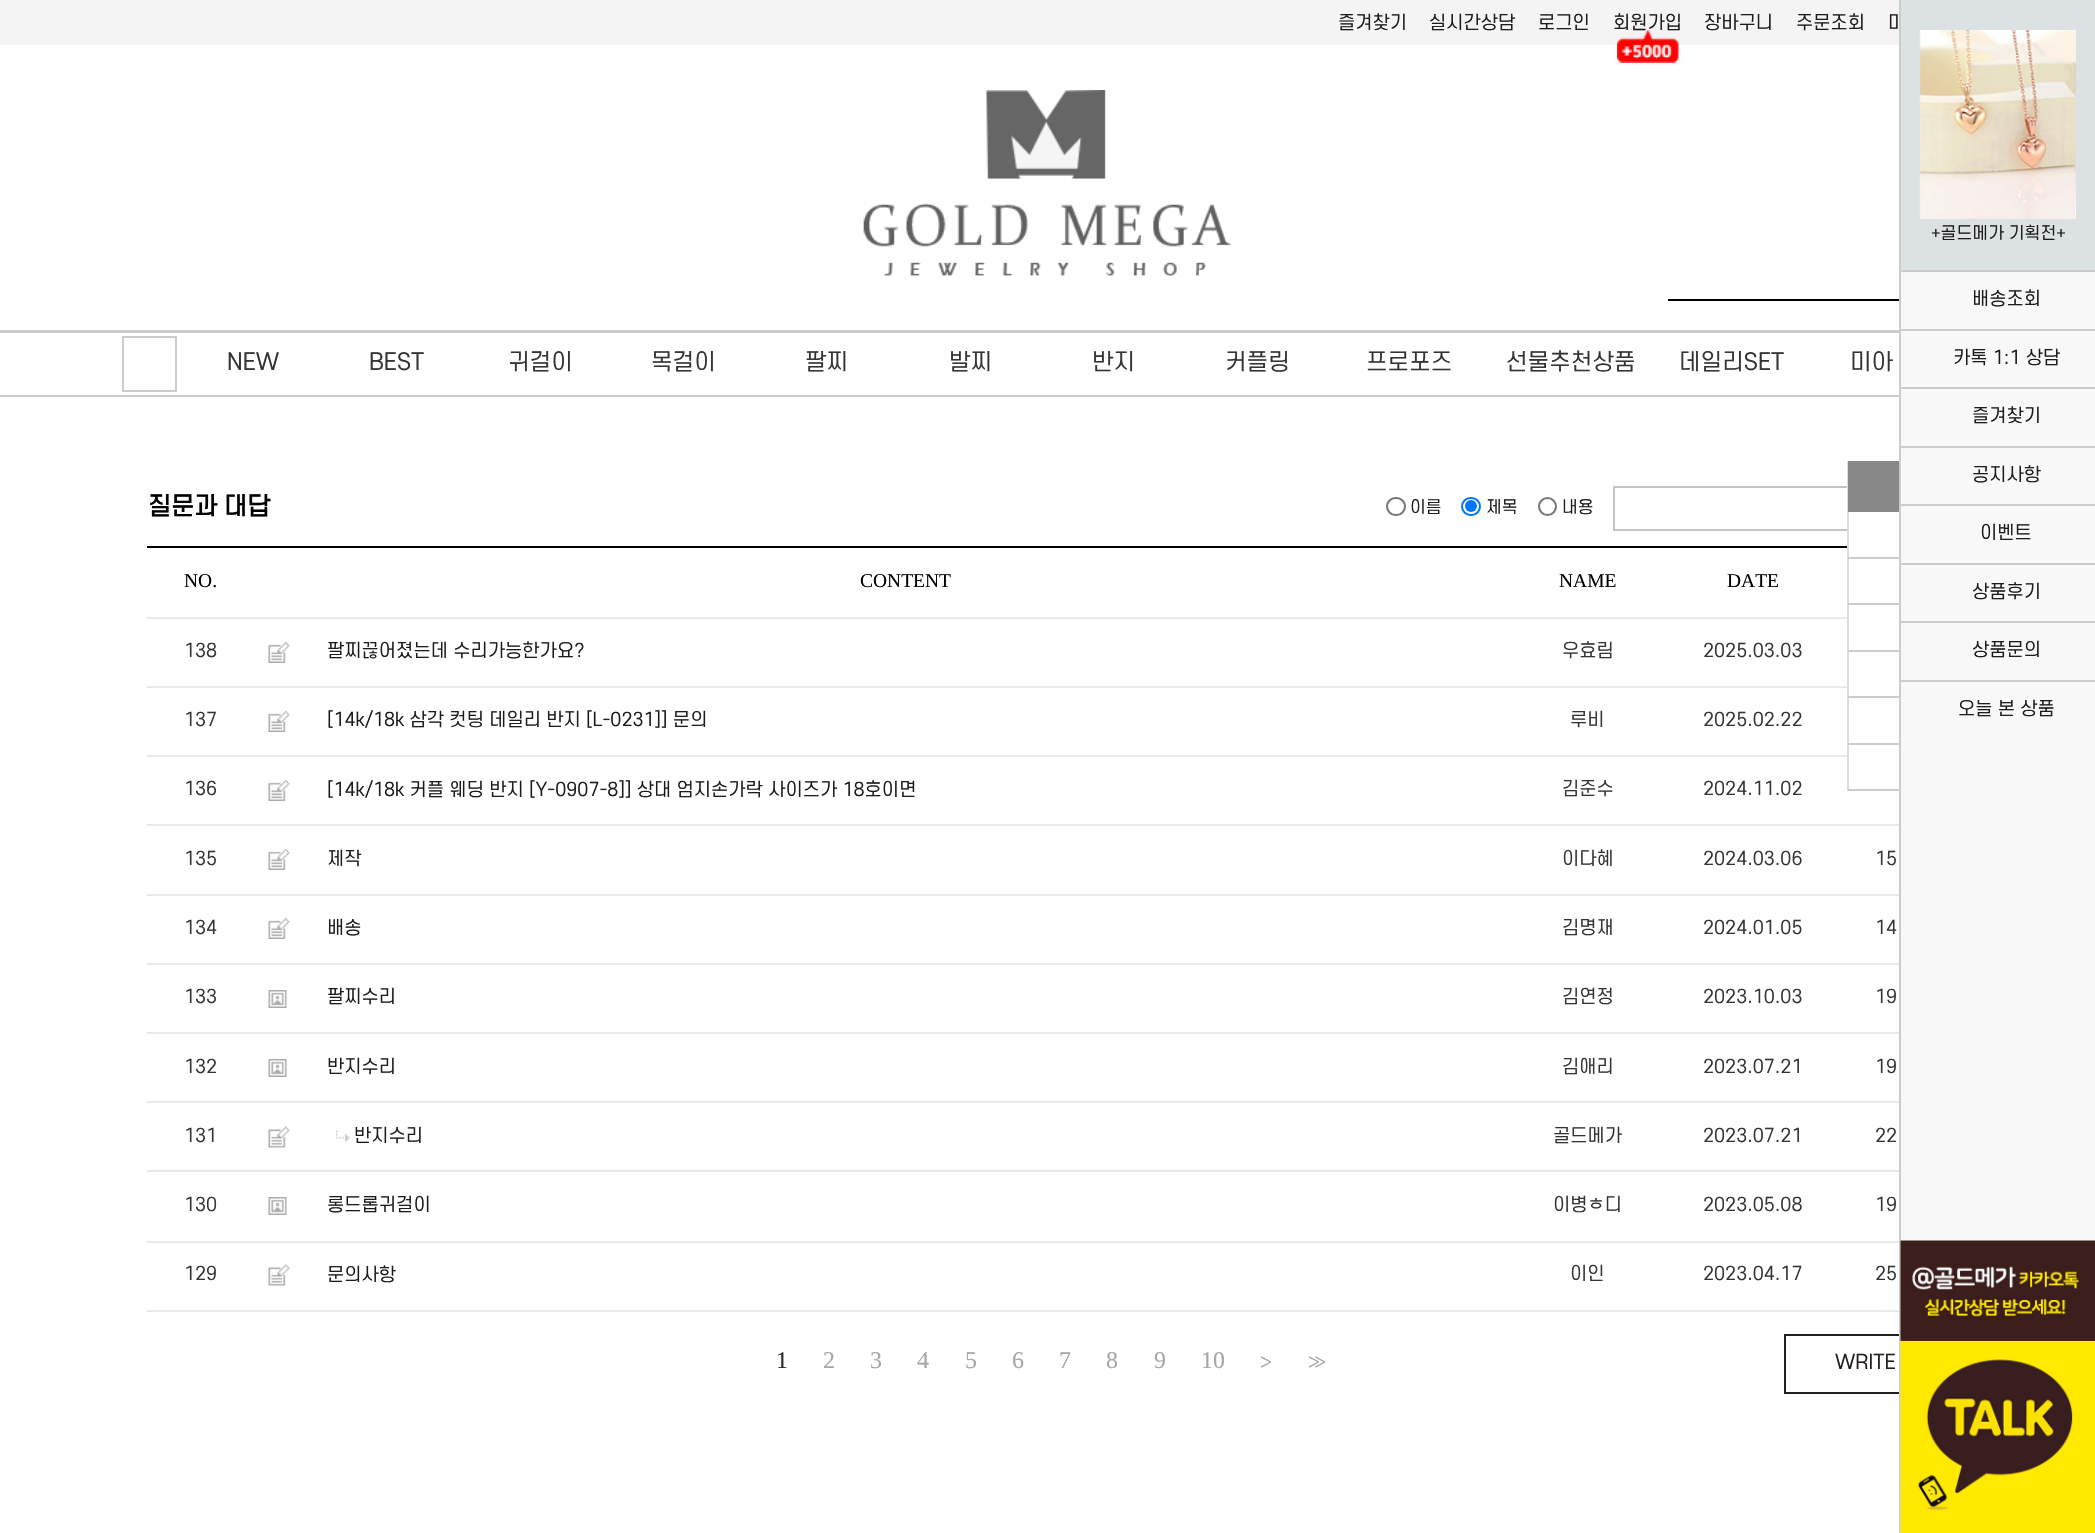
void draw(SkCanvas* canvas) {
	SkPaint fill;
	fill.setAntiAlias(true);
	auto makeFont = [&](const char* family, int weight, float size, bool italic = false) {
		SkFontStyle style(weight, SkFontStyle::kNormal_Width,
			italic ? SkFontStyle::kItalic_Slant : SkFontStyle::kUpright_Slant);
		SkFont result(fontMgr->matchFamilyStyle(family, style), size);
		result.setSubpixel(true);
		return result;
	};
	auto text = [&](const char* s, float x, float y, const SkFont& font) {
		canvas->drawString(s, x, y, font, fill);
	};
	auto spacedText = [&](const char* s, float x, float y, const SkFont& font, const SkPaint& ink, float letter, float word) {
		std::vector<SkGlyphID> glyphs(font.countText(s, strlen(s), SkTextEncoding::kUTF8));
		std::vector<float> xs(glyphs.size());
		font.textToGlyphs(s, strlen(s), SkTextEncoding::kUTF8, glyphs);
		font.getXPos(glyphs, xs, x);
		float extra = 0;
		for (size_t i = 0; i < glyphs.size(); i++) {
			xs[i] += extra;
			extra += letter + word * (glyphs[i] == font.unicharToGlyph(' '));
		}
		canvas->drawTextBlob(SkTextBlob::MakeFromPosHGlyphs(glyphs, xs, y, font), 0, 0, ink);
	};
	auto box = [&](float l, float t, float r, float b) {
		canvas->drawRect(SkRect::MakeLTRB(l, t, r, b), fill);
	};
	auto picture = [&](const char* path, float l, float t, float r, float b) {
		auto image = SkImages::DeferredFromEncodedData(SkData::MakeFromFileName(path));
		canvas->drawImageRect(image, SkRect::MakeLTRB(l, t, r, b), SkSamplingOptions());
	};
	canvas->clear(0xFFFFFFFF);
	fill.setColor(0xFFF4F4F4);
	box(0, 0, 1899, 45);
	picture("image1.png", 863, 90, 1231, 276);
	fill.setColor(0xFF000000);
	box(1668, 299, 1899, 301);
	fill.setColor(0xFFCDCDCD);
	box(0, 330, 1899, 333);
	box(0, 395, 1899, 397);
	fill.setStyle(SkPaint::kStroke_Style);
	fill.setStrokeWidth(2);
	fill.setColor(0xFFCCCCCC);
	canvas->drawRect(SkRect::MakeLTRB(123, 337, 176, 391), fill);
	fill.setStyle(SkPaint::kFill_Style);
	fill.setColor(0xFFF8F8F8);
	box(1901, 272, 2095, 1241);
	fill.setStyle(SkPaint::kStroke_Style);
	fill.setColor(0xFFC3C3C3);
	canvas->drawRect(SkRect::MakeLTRB(1614, 487, 1889, 530), fill);
	fill.setStyle(SkPaint::kFill_Style);
	fill.setColor(0xFFFFFFFF);
	box(1849, 512, 1890, 531);
	fill.setColor(0xFFDDDDDD);
	box(1847, 461, 1849, 791);
	fill.setColor(0xFF888888);
	box(1848, 461, 1899, 512);
	fill.setColor(0xFFCCCCCC);
	box(1848, 557, 1899, 559);
	box(1848, 603, 1899, 605);
	box(1848, 650, 1899, 652);
	box(1848, 696, 1899, 698);
	box(1848, 743, 1899, 745);
	box(1848, 789, 1899, 791);
	box(1901, 270, 2095, 272);
	box(1901, 329, 2095, 331);
	box(1901, 387, 2095, 389);
	box(1901, 446, 2095, 448);
	box(1901, 504, 2095, 506);
	box(1901, 563, 2095, 565);
	box(1901, 621, 2095, 623);
	box(1901, 680, 2095, 682);
	fill.setStyle(SkPaint::kStroke_Style);
	fill.setColor(0xFF767676);
	canvas->drawRoundRect(SkRect::MakeLTRB(1387, 498, 1405, 515), 8.5f, 8.5f, fill);
	fill.setColor(0xFF0075FF);
	canvas->drawRoundRect(SkRect::MakeLTRB(1462, 498, 1480, 515), 8.5f, 8.5f, fill);
	fill.setStyle(SkPaint::kFill_Style);
	canvas->drawCircle(1471, 506, 6, fill);
	fill.setStyle(SkPaint::kStroke_Style);
	fill.setColor(0xFF767676);
	canvas->drawCircle(1547.5f, 506.5f, 8.5f, fill);
	fill.setStyle(SkPaint::kFill_Style);
	fill.setColor(0xFF000000);
	box(147, 546, 1847, 548);
	fill.setColor(0xFFE9E9E9);
	box(147, 617, 1847, 619);
	picture("image4.png", 268, 642, 290, 663);
	box(147, 686, 1847, 688);
	picture("image4.png", 268, 711, 290, 732);
	box(147, 755, 1847, 757);
	picture("image4.png", 268, 780, 290, 801);
	box(147, 824, 1899, 826);
	picture("image4.png", 268, 849, 290, 870);
	box(147, 894, 1899, 896);
	picture("image4.png", 268, 918, 290, 939);
	box(147, 963, 1899, 965);
	picture("image5.png", 268, 990, 287, 1008);
	box(147, 1032, 1899, 1034);
	picture("image5.png", 268, 1059, 287, 1077);
	box(147, 1101, 1899, 1103);
	picture("image6.png", 268, 1126, 290, 1148);
	picture("image7.png", 336, 1131, 350, 1142);
	box(147, 1170, 1899, 1172);
	picture("image5.png", 268, 1197, 287, 1215);
	box(147, 1241, 1899, 1243);
	picture("image6.png", 268, 1264, 290, 1286);
	box(147, 1310, 1899, 1312);
	fill.setStyle(SkPaint::kStroke_Style);
	fill.setColor(0xFF231F20);
	canvas->drawRect(SkRect::MakeLTRB(1785, 1335, 1948, 1393), fill);
	auto font1 = makeFont("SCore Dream", 400, 18);
	fill.setStyle(SkPaint::kFill_Style);
	fill.setColor(0xFF1C1C1C);
	text("즐겨찾기", 1338, 29, font1);
	text("실시간상담", 1429, 29, font1);
	text("로그인", 1538, 29, font1);
	text("회원가입", 1613, 29, font1);
	picture("image0.png", 1617, 30, 1679, 63);
	text("장바구니", 1704, 29, font1);
	text("주문조회", 1796, 29, font1);
	text("마", 1888, 29, font1);
	auto font2 = makeFont("SCore Dream", 400, 22.5f);
	fill.setColor(0xFF343434);
	text("NEW", 227, 370, font2);
	text("BEST", 369, 370, font2);
	text("귀걸이", 508, 370, font2);
	text("목걸이", 651, 370, font2);
	text("팔찌", 805, 370, font2);
	text("발찌", 949, 370, font2);
	text("반지", 1092, 370, font2);
	text("커플링", 1225, 370, font2);
	text("프로포즈", 1366, 370, font2);
	text("선물추천상품", 1506, 370, font2);
	text("데일리SET", 1679, 370, font2);
	text("미아", 1850, 370, font2);
	fill.setColor(0xFFCCCCCC);
	box(1899, 0, 1901, 1533);
	fill.setColor(0xFFDCE1E4);
	box(1901, 0, 2095, 270);
	picture("image2.png", 1919, 30, 2076, 219);
	auto font3 = makeFont("SCore Dream", 400, 16.5f);
	fill.setColor(0xFF1C1C1C);
	text("+골드메가 기획전+", 1931, 239, font3);
	text("배송조회", 1972, 305, font1);
	text("카톡 1:1 상담", 1953, 364, font1);
	text("즐겨찾기", 1972, 422, font1);
	text("공지사항", 1972, 481, font1);
	text("이벤트", 1980, 539, font1);
	text("상품후기", 1972, 598, font1);
	text("상품문의", 1972, 656, font1);
	text("오늘 본 상품", 1958, 715, font1);
	picture("image3.png", 1900, 1240, 2095, 1533);
	auto font4 = makeFont("SCore Dream", 700, 24);
	fill.setColor(0xFF000000);
	text("질문과 대답", 148, 515, font4);
	fill.setColor(0xFF1C1C1C);
	text("이름", 1410, 513, font3);
	text("제목", 1486, 513, font3);
	text("내용", 1562, 513, font3);
	auto font5 = makeFont("Liberation Serif", 400, 19.5f);
	fill.setColor(0xFF000000);
	text("NO.", 184, 587, font5);
	text("CONTENT", 860, 587, font5);
	text("NAME", 1559, 587, font5);
	text("DATE", 1727, 587, font5);
	fill.setColor(0xFF343434);
	text("138", 184, 657, font1);
	fill.setColor(0xFF1C1C1C);
	text("팔찌끊어졌는데 수리가능한가요?", 327, 657, font1);
	fill.setColor(0xFF343434);
	text("우효림", 1562, 657, font1);
	text("2025.03.03", 1703, 657, font1);
	text("137", 184, 726, font1);
	fill.setColor(0xFF1C1C1C);
	text("[14k/18k 삼각 컷팅 데일리 반지 [L-0231]] 문의", 327, 726, font1);
	fill.setColor(0xFF343434);
	text("루비", 1570, 726, font1);
	text("2025.02.22", 1703, 726, font1);
	text("136", 184, 795, font1);
	fill.setColor(0xFF1C1C1C);
	text("[14k/18k 커플 웨딩 반지 [Y-0907-8]] 상대 엄지손가락 사이즈가 18호이면", 327, 796, font1);
	fill.setColor(0xFF343434);
	text("김준수", 1562, 795, font1);
	text("2024.11.02", 1703, 795, font1);
	text("135", 184, 865, font1);
	fill.setColor(0xFF1C1C1C);
	text("제작", 327, 865, font1);
	fill.setColor(0xFF343434);
	text("이다혜", 1562, 865, font1);
	text("2024.03.06", 1703, 865, font1);
	text("15", 1875, 865, font1);
	text("134", 184, 934, font1);
	fill.setColor(0xFF1C1C1C);
	text("배송", 327, 934, font1);
	fill.setColor(0xFF343434);
	text("김명재", 1562, 934, font1);
	text("2024.01.05", 1703, 934, font1);
	text("14", 1875, 934, font1);
	text("133", 184, 1003, font1);
	fill.setColor(0xFF1C1C1C);
	text("팔찌수리", 327, 1003, font1);
	fill.setColor(0xFF343434);
	text("김연정", 1562, 1003, font1);
	text("2023.10.03", 1703, 1003, font1);
	text("19", 1875, 1003, font1);
	text("132", 184, 1073, font1);
	fill.setColor(0xFF1C1C1C);
	text("반지수리", 327, 1073, font1);
	fill.setColor(0xFF343434);
	text("김애리", 1562, 1073, font1);
	text("2023.07.21", 1703, 1073, font1);
	text("19", 1875, 1073, font1);
	text("131", 184, 1142, font1);
	fill.setColor(0xFF1C1C1C);
	text("반지수리", 354, 1142, font1);
	fill.setColor(0xFF343434);
	text("골드메가", 1553, 1142, font1);
	text("2023.07.21", 1703, 1142, font1);
	text("22", 1875, 1142, font1);
	text("130", 184, 1211, font1);
	fill.setColor(0xFF1C1C1C);
	text("롱드롭귀걸이", 327, 1211, font1);
	fill.setColor(0xFF343434);
	text("이병ㅎ디", 1553, 1211, font1);
	text("2023.05.08", 1703, 1211, font1);
	text("19", 1875, 1211, font1);
	text("129", 184, 1280, font1);
	fill.setColor(0xFF1C1C1C);
	text("문의사항", 327, 1281, font1);
	fill.setColor(0xFF343434);
	text("이인", 1570, 1280, font1);
	text("2023.04.17", 1703, 1280, font1);
	text("25", 1875, 1280, font1);
	auto font6 = makeFont("Liberation Serif", 400, 24);
	fill.setColor(0xFF2A2A2A);
	text("1", 776, 1368, font6);
	fill.setColor(0xFFA6A6A6);
	text("2", 823, 1368, font6);
	text("3", 870, 1368, font6);
	text("4", 917, 1368, font6);
	text("5", 965, 1368, font6);
	text("6", 1012, 1368, font6);
	text("7", 1059, 1368, font6);
	text("8", 1106, 1368, font6);
	text("9", 1154, 1368, font6);
	text("10", 1201, 1368, font6);
	auto font7 = makeFont("Dotum", 400, 19.5f);
	text(">", 1260, 1369, font7);
	spacedText(">>", 1308, 1369, font7, fill, -6, 0);
	auto font8 = makeFont("SCore Dream", 400, 19.5f);
	fill.setColor(0xFF231F20);
	text("WRITE", 1835, 1369, font8);
}
